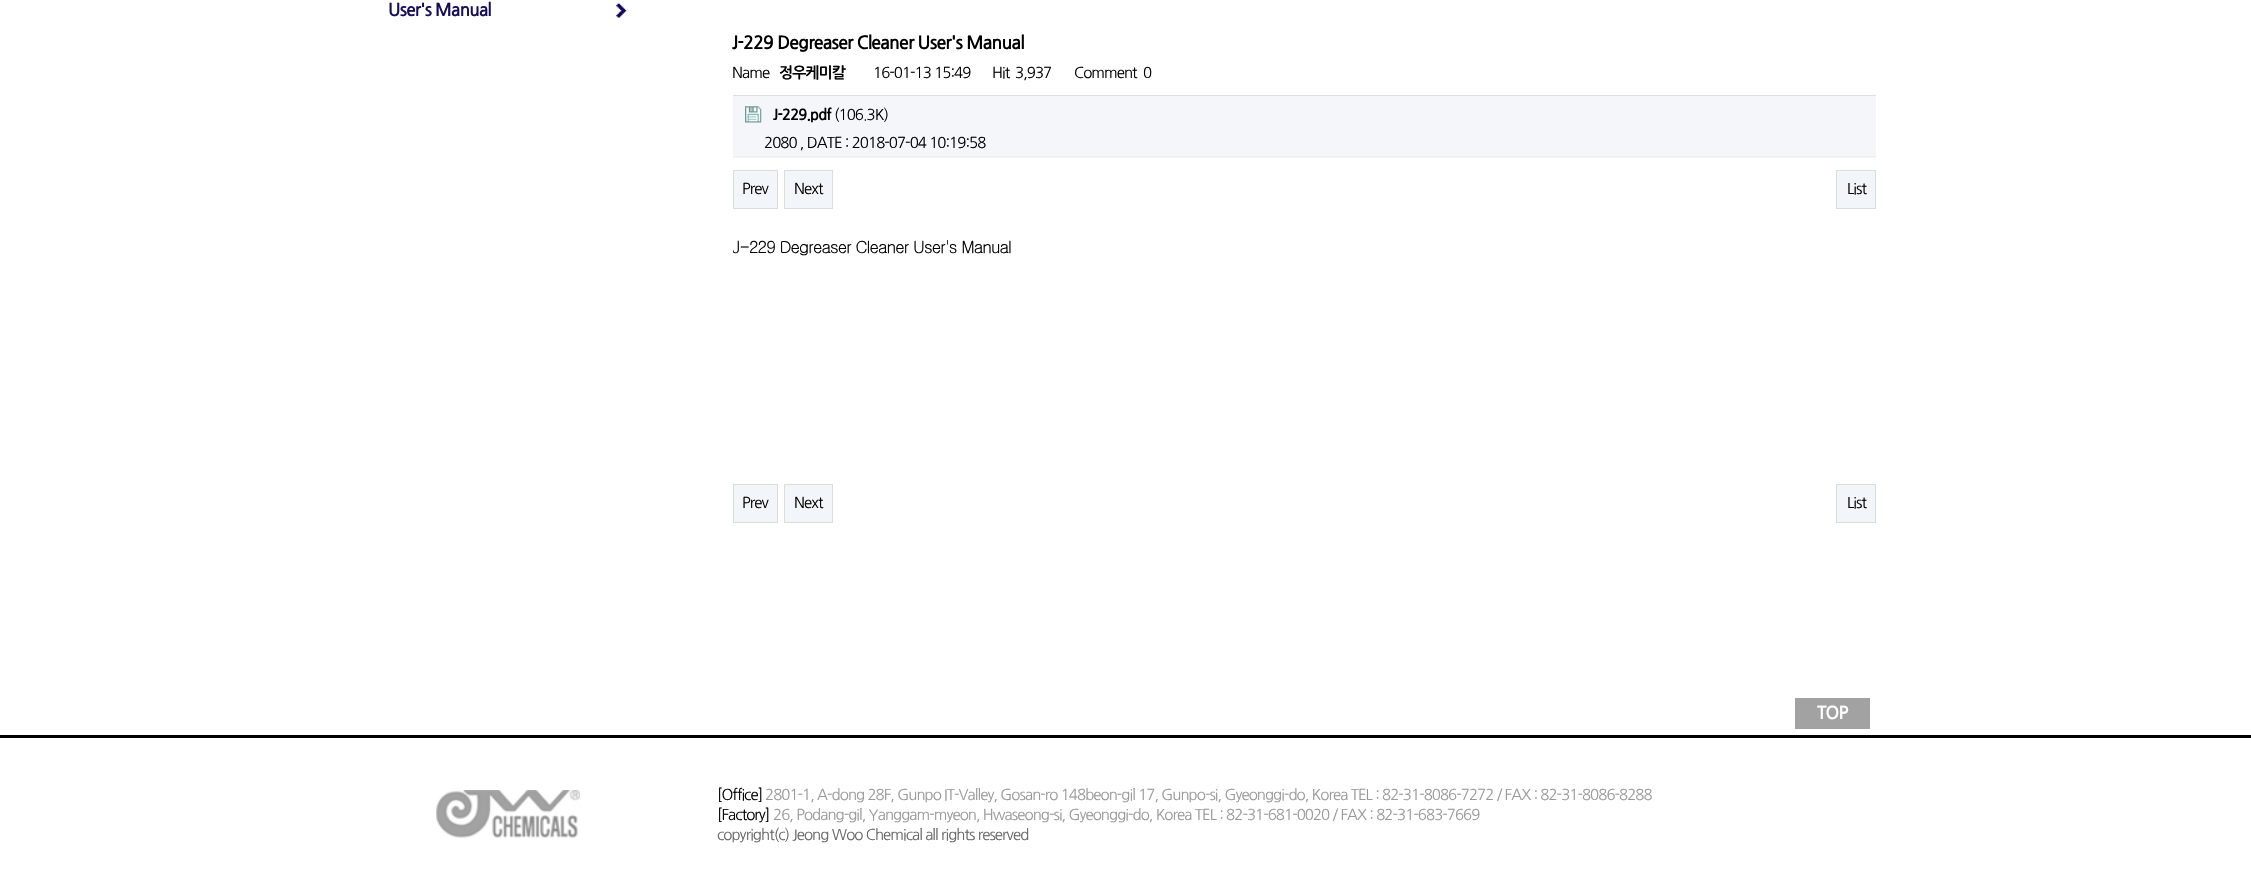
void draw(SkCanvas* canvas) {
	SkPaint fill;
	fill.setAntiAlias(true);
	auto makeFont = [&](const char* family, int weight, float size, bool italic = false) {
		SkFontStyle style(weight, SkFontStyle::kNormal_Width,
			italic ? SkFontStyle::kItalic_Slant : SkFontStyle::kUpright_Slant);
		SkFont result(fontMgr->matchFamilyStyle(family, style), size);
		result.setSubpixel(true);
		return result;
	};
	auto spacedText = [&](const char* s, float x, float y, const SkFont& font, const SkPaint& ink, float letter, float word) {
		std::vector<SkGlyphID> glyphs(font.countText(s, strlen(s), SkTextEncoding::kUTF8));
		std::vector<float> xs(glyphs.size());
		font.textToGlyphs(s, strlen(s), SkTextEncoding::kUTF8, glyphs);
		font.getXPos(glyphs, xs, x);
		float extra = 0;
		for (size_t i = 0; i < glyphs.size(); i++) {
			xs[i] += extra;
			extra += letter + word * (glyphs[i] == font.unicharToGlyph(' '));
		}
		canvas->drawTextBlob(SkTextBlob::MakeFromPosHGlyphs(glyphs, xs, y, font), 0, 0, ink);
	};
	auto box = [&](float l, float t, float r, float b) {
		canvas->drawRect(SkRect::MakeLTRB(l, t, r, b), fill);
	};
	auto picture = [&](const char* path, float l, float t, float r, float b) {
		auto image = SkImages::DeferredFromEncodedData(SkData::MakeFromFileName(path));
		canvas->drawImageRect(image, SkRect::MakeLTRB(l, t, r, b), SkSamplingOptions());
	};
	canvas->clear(0xFFFFFFFF);
	picture("image0.png", 616, 3, 627, 18);
	fill.setColor(0xFFDDDDDD);
	box(733, 95, 1876, 96);
	fill.setColor(0xFFF5F6FA);
	box(733, 96, 1876, 158);
	fill.setColor(0xFFEEEEEE);
	box(733, 156, 1876, 157);
	picture("image1.png", 745, 106, 762, 123);
	fill.setColor(0xFFF2F5F9);
	canvas->drawRect(SkRect::MakeLTRB(733.5f, 170.5f, 777.5f, 208.5f), fill);
	fill.setStyle(SkPaint::kStroke_Style);
	fill.setStrokeWidth(1);
	fill.setColor(0xFFD9DED9);
	canvas->drawRect(SkRect::MakeLTRB(733.5f, 170.5f, 777.5f, 208.5f), fill);
	fill.setStyle(SkPaint::kFill_Style);
	fill.setColor(0xFFF2F5F9);
	canvas->drawRect(SkRect::MakeLTRB(784.5f, 170.5f, 832.5f, 208.5f), fill);
	fill.setStyle(SkPaint::kStroke_Style);
	fill.setColor(0xFFD9DED9);
	canvas->drawRect(SkRect::MakeLTRB(784.5f, 170.5f, 832.5f, 208.5f), fill);
	fill.setStyle(SkPaint::kFill_Style);
	fill.setColor(0xFFF2F5F9);
	canvas->drawRect(SkRect::MakeLTRB(1836.5f, 170.5f, 1875.5f, 208.5f), fill);
	fill.setStyle(SkPaint::kStroke_Style);
	fill.setColor(0xFFD9DED9);
	canvas->drawRect(SkRect::MakeLTRB(1836.5f, 170.5f, 1875.5f, 208.5f), fill);
	fill.setStyle(SkPaint::kFill_Style);
	fill.setColor(0xFFF2F5F9);
	canvas->drawRect(SkRect::MakeLTRB(733.5f, 484.5f, 777.5f, 522.5f), fill);
	fill.setStyle(SkPaint::kStroke_Style);
	fill.setColor(0xFFD9DED9);
	canvas->drawRect(SkRect::MakeLTRB(733.5f, 484.5f, 777.5f, 522.5f), fill);
	fill.setStyle(SkPaint::kFill_Style);
	fill.setColor(0xFFF2F5F9);
	canvas->drawRect(SkRect::MakeLTRB(784.5f, 484.5f, 832.5f, 522.5f), fill);
	fill.setStyle(SkPaint::kStroke_Style);
	fill.setColor(0xFFD9DED9);
	canvas->drawRect(SkRect::MakeLTRB(784.5f, 484.5f, 832.5f, 522.5f), fill);
	fill.setStyle(SkPaint::kFill_Style);
	fill.setColor(0xFFF2F5F9);
	canvas->drawRect(SkRect::MakeLTRB(1836.5f, 484.5f, 1875.5f, 522.5f), fill);
	fill.setStyle(SkPaint::kStroke_Style);
	fill.setColor(0xFFD9DED9);
	canvas->drawRect(SkRect::MakeLTRB(1836.5f, 484.5f, 1875.5f, 522.5f), fill);
	fill.setStyle(SkPaint::kFill_Style);
	fill.setColor(0xFFA2A2A2);
	box(1795, 698, 1870, 729);
	fill.setColor(0xFF000000);
	box(0, 735, 2251, 738);
	picture("image2.png", 436, 790, 580, 838);
	auto font1 = makeFont("NanumGothic", 700, 17.5f);
	fill.setColor(0xFF170E57);
	spacedText("User's Manual", 388, 16, font1, fill, -0.94f, 0);
	auto font2 = makeFont("NanumGothic", 700, 18);
	fill.setColor(0xFF000000);
	spacedText("J-229 Degreaser Cleaner User's Manual", 732, 49, font2, fill, -0.94f, 0);
	auto font3 = makeFont("NanumGothic", 400, 15);
	spacedText("Name", 732, 78, font3, fill, -0.94f, 0);
	auto font4 = makeFont("NanumGothic", 700, 15);
	spacedText("정우케미칼", 779, 78, font4, fill, -0.94f, 0);
	spacedText("16-01-13 15:49", 873, 78, font3, fill, -0.94f, 0);
	spacedText("Hit", 992, 78, font3, fill, -0.94f, 0);
	spacedText("3,937", 1015, 78, font3, fill, -0.94f, 0);
	spacedText("Comment", 1074, 78, font3, fill, -0.94f, 0);
	spacedText("0", 1143, 78, font3, fill, -0.94f, 0);
	spacedText("J-229.pdf", 773, 120, font4, fill, -0.94f, 0);
	spacedText("(106.3K)", 834, 120, font3, fill, -0.94f, 0);
	spacedText("2080 , DATE : 2018-07-04 10:19:58", 764, 148, font3, fill, -0.94f, 0);
	spacedText("Prev", 742, 194, font3, fill, -0.94f, 0);
	spacedText("Next", 794, 194, font3, fill, -0.94f, 0);
	spacedText("List", 1847, 194, font3, fill, -0.94f, 0);
	canvas->save();
	canvas->clipRect(SkRect::MakeLTRB(733, 234, 1876, 260));
	auto font5 = makeFont("Gulim", 400, 16.7f);
	spacedText("J-229 Degreaser Cleaner User's Manual", 732, 253, font5, fill, -0.94f, 0);
	canvas->restore();
	spacedText("Prev", 742, 508, font3, fill, -0.94f, 0);
	spacedText("Next", 794, 508, font3, fill, -0.94f, 0);
	spacedText("List", 1847, 508, font3, fill, -0.94f, 0);
	fill.setColor(0xFFFFFFFF);
	spacedText("TOP", 1817, 719, font1, fill, -0.94f, 0);
	fill.setColor(0xFF000000);
	spacedText("[Office]", 717, 800, font3, fill, -0.94f, 0);
	fill.setColor(0xFF999999);
	spacedText("2801-1, A-dong 28F, Gunpo IT-Valley, Gosan-ro 148beon-gil 17, Gunpo-si, Gyeonggi-do, Korea TEL : 82-31-8086-7272 / FAX : 82-31-8086-8288", 765, 800, font3, fill, -0.94f, 0);
	fill.setColor(0xFF000000);
	spacedText("[Factory]", 717, 820, font3, fill, -0.94f, 0);
	fill.setColor(0xFF999999);
	spacedText("26, Podang-gil, Yanggam-myeon, Hwaseong-si, Gyeonggi-do, Korea TEL : 82-31-681-0020 / FAX : 82-31-683-7669", 773, 820, font3, fill, -0.94f, 0);
	fill.setColor(0xFF666666);
	spacedText("copyright(c) Jeong Woo Chemical all rights reserved", 717, 840, font3, fill, -0.94f, 0);
}
